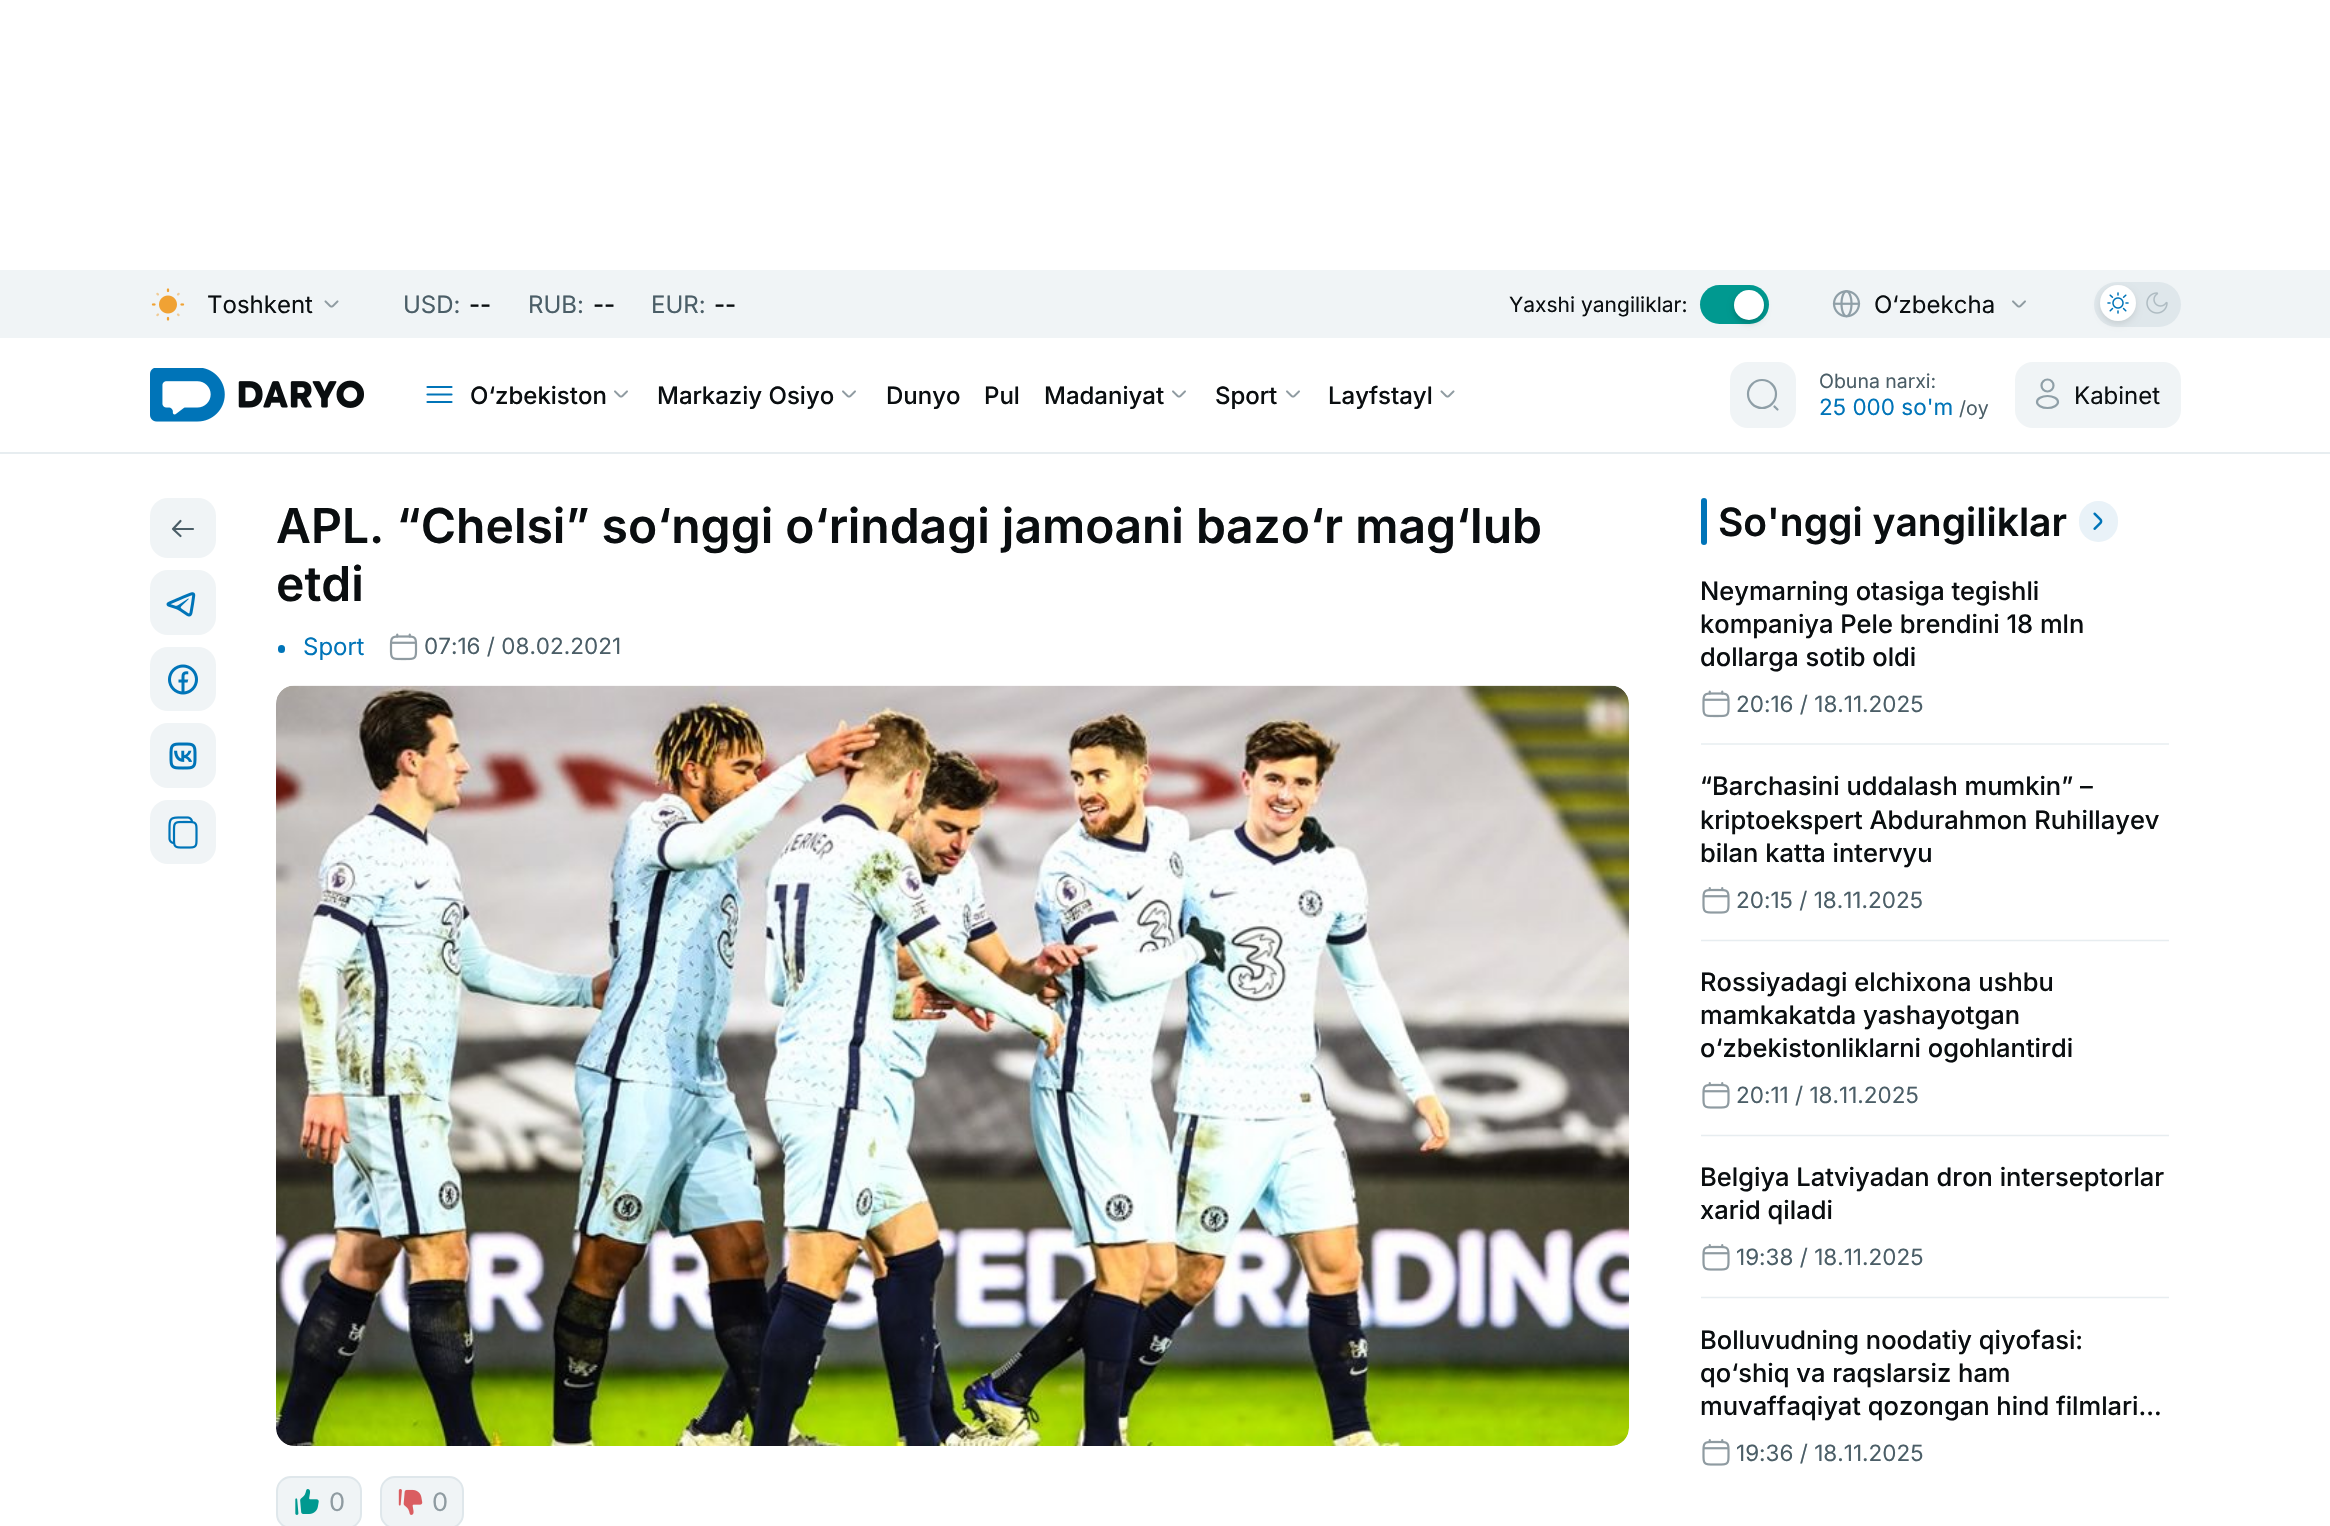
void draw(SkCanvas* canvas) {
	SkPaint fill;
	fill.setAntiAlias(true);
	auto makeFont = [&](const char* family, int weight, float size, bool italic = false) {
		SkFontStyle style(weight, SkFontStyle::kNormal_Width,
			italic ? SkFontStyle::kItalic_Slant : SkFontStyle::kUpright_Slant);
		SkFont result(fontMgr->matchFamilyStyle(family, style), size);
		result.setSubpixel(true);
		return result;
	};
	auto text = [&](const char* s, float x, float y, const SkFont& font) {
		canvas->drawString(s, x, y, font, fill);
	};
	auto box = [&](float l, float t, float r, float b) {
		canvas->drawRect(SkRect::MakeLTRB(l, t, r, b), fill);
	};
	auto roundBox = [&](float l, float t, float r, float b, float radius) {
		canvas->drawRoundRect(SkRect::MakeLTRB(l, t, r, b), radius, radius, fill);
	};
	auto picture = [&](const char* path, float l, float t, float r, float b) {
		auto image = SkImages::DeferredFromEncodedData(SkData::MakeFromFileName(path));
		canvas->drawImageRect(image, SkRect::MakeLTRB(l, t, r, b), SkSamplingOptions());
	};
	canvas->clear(0xFFFFFFFF);
	fill.setColor(0xFFF0F4F6);
	box(0, 270, 2330, 338);
	picture("image0.png", 151, 288, 185, 321);
	picture("image1.png", 324, 300, 339, 308);
	fill.setColor(0xFF009990);
	roundBox(1700, 285, 1769, 324, 19.5f);
	fill.setColor(0x33000000);
	fill.setMaskFilter(SkMaskFilter::MakeBlur(kNormal_SkBlurStyle, 3));
	canvas->drawRoundRect(SkRect::MakeLTRB(1734, 293, 1764, 323), 15, 15, fill);
	fill.setMaskFilter(nullptr);
	fill.setColor(0xFFFFFFFF);
	canvas->drawCircle(1749, 305, 15, fill);
	picture("image2.png", 1832, 290, 1861, 318);
	picture("image3.png", 2012, 300, 2026, 308);
	fill.setColor(0xFFDFE7EB);
	roundBox(2094, 282, 2181, 327, 22.5f);
	fill.setColor(0x1A000000);
	fill.setMaskFilter(SkMaskFilter::MakeBlur(kNormal_SkBlurStyle, 3));
	canvas->drawRoundRect(SkRect::MakeLTRB(2100, 288, 2136, 324), 18, 18, fill);
	fill.setMaskFilter(nullptr);
	fill.setColor(0xFFFFFFFF);
	canvas->drawCircle(2118, 303, 18, fill);
	picture("image4.png", 2107, 292, 2129, 314);
	picture("image5.png", 2146, 292, 2168, 314);
	fill.setColor(0xFFE7EDF0);
	box(0, 452, 2330, 454);
	picture("image6.png", 150, 368, 364, 422);
	fill.setStyle(SkPaint::kStroke_Style);
	fill.setStrokeWidth(2.2f);
	fill.setStrokeCap(SkPaint::kRound_Cap);
	fill.setColor(0xFF0074B8);
	canvas->drawPath(SkPathBuilder().moveTo(451.5f, 387).lineTo(427.5f, 387).moveTo(451.5f, 394.5f).lineTo(427.5f, 394.5f).moveTo(451.5f, 402).lineTo(427.5f, 402).detach(), fill);
	picture("image7.png", 614, 390, 628, 398);
	picture("image7.png", 842, 390, 856, 398);
	picture("image7.png", 1172, 390, 1186, 398);
	picture("image7.png", 1286, 390, 1300, 398);
	picture("image8.png", 1440, 390, 1455, 398);
	fill.setStyle(SkPaint::kFill_Style);
	fill.setColor(0xFFF0F4F6);
	roundBox(1730, 362, 1796, 428, 18);
	fill.setStyle(SkPaint::kStroke_Style);
	fill.setStrokeCap(SkPaint::kButt_Cap);
	fill.setColor(0xFF8F9FA7);
	canvas->drawCircle(1762, 394, 14, fill);
	fill.setStrokeCap(SkPaint::kRound_Cap);
	canvas->drawPath(SkPathBuilder().moveTo(1774.5f, 406.5f).lineTo(1777.5f, 409.5f).detach(), fill);
	fill.setStyle(SkPaint::kFill_Style);
	fill.setColor(0xFFF0F4F6);
	roundBox(2015, 362, 2181, 428, 18);
	fill.setStyle(SkPaint::kStroke_Style);
	fill.setStrokeCap(SkPaint::kButt_Cap);
	fill.setColor(0xFF8F9FA7);
	canvas->drawCircle(2047.5f, 385.5f, 6, fill);
	canvas->drawOval(SkRect::MakeLTRB(2037, 396, 2058, 408), fill);
	fill.setStyle(SkPaint::kFill_Style);
	fill.setColor(0xFFF0F4F6);
	roundBox(150, 498, 216, 558, 18);
	fill.setStyle(SkPaint::kStroke_Style);
	fill.setStrokeCap(SkPaint::kRound_Cap);
	fill.setStrokeJoin(SkPaint::kRound_Join);
	fill.setColor(0xFF4B5E67);
	canvas->drawPath(SkPathBuilder().moveTo(193, 529).lineTo(173, 529).moveTo(173, 529).lineTo(180.5f, 521).moveTo(173, 529).lineTo(180.5f, 536).detach(), fill);
	fill.setStyle(SkPaint::kFill_Style);
	fill.setColor(0xFFF0F4F6);
	roundBox(150, 570, 216, 635, 18);
	picture("image9.png", 166, 592, 196, 617);
	roundBox(150, 647, 216, 711, 18);
	picture("image10.png", 168, 664, 198, 695);
	roundBox(150, 723, 216, 788, 18);
	picture("image11.png", 169, 742, 197, 770);
	roundBox(150, 800, 216, 864, 18);
	picture("image12.png", 168, 816, 198, 849);
	fill.setColor(0xFF0074B8);
	roundBox(278, 645, 285, 653, 3.5f);
	picture("image13.png", 389, 633, 418, 661);
	picture("image14.png", 276, 685, 1629, 1446);
	fill.setColor(0xFFF0F4F6);
	canvas->drawRoundRect(SkRect::MakeLTRB(277, 1477, 361, 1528), 14, 14, fill);
	fill.setStyle(SkPaint::kStroke_Style);
	fill.setStrokeWidth(2);
	fill.setStrokeCap(SkPaint::kButt_Cap);
	fill.setStrokeJoin(SkPaint::kMiter_Join);
	fill.setColor(0xFFDFE7EB);
	canvas->drawRoundRect(SkRect::MakeLTRB(277, 1477, 361, 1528), 14, 14, fill);
	picture("image15.png", 295, 1489, 319, 1515);
	fill.setStyle(SkPaint::kFill_Style);
	fill.setColor(0xFFF0F4F6);
	canvas->drawRoundRect(SkRect::MakeLTRB(381, 1477, 463, 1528), 14, 14, fill);
	fill.setStyle(SkPaint::kStroke_Style);
	fill.setColor(0xFFDFE7EB);
	canvas->drawRoundRect(SkRect::MakeLTRB(381, 1477, 463, 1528), 14, 14, fill);
	picture("image16.png", 398, 1489, 423, 1515);
	fill.setStyle(SkPaint::kFill_Style);
	fill.setColor(0xFF0074B8);
	roundBox(1701, 498, 1707, 545, 3);
	fill.setColor(0xFFE9F2F8);
	roundBox(2079, 501, 2118, 542, 19.5f);
	picture("image17.png", 2093, 512, 2103, 530);
	picture("image18.png", 1702, 690, 1730, 718);
	fill.setColor(0xFFEDF2F4);
	box(1701, 743, 2169, 745);
	picture("image19.png", 1702, 887, 1730, 914);
	canvas->save();
	canvas->clipRect(SkRect::MakeLTRB(1701, 939, 2169, 942));
	fill.setStyle(SkPaint::kStroke_Style);
	fill.setStrokeWidth(1.5f);
	fill.setColor(0xFFE7EDF0);
	canvas->drawPath(SkPathBuilder().moveTo(1701, 940.5f).lineTo(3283.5f, 940.5f).detach(), fill);
	canvas->restore();
	picture("image19.png", 1702, 1082, 1730, 1109);
	canvas->save();
	canvas->clipRect(SkRect::MakeLTRB(1701, 1134, 2169, 1137));
	canvas->drawPath(SkPathBuilder().moveTo(1701, 1135.5f).lineTo(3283.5f, 1135.5f).detach(), fill);
	canvas->restore();
	picture("image19.png", 1702, 1244, 1730, 1271);
	canvas->save();
	canvas->clipRect(SkRect::MakeLTRB(1701, 1296, 2169, 1299));
	canvas->drawPath(SkPathBuilder().moveTo(1701, 1297.5f).lineTo(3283.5f, 1297.5f).detach(), fill);
	canvas->restore();
	picture("image19.png", 1702, 1439, 1730, 1466);
	auto font1 = makeFont("Inter", 400, 24);
	fill.setStyle(SkPaint::kFill_Style);
	fill.setColor(0xFF0A0E10);
	text("Toshkent", 207, 313, font1);
	fill.setColor(0xFF4B5E67);
	text("USD:", 403, 313, font1);
	auto font2 = makeFont("Inter", 500, 24);
	fill.setColor(0xFF0A0E10);
	text("--", 469, 313, font2);
	fill.setColor(0xFF4B5E67);
	text("RUB:", 528, 313, font1);
	fill.setColor(0xFF0A0E10);
	text("--", 593, 313, font2);
	fill.setColor(0xFF4B5E67);
	text("EUR:", 651, 313, font1);
	fill.setColor(0xFF0A0E10);
	text("--", 714, 313, font2);
	auto font3 = makeFont("Inter", 400, 21);
	text("Yaxshi yangiliklar:", 1509, 312, font3);
	text("O‘zbekcha", 1874, 313, font1);
	text("O‘zbekiston", 470, 404, font2);
	text("Markaziy Osiyo", 657, 404, font2);
	text("Dunyo", 886, 404, font2);
	text("Pul", 984, 404, font2);
	text("Madaniyat", 1044, 404, font2);
	text("Sport", 1215, 404, font2);
	text("Layfstayl", 1328, 404, font2);
	auto font4 = makeFont("Inter", 400, 19.5f);
	fill.setColor(0xFF4B5E67);
	text("Obuna narxi:", 1819, 388, font4);
	auto font5 = makeFont("Inter", 400, 22.5f);
	fill.setColor(0xFF0074B8);
	text("25 000 so'm", 1819, 415, font5);
	fill.setColor(0xFF4B5E67);
	text("/oy", 1959, 415, font4);
	fill.setColor(0xFF0A0E10);
	text("Kabinet", 2074, 404, font1);
	auto font6 = makeFont("Inter", 600, 48);
	text("APL. “Chelsi” so‘nggi o‘rindagi jamoani bazo‘r mag‘lub", 276, 543, font6);
	text("etdi", 276, 601, font6);
	fill.setColor(0xFF0074B8);
	text("Sport", 303, 655, font1);
	fill.setColor(0xFF4B5E67);
	text("07:16 / 08.02.2021", 424, 654, font5);
	auto font7 = makeFont("Inter", 400, 25.5f);
	fill.setColor(0xFF8F9BA1);
	text("0", 329, 1511, font7);
	text("0", 432, 1511, font7);
	auto font8 = makeFont("Inter", 600, 39);
	fill.setColor(0xFF0A0E10);
	text("So'nggi yangiliklar", 1718, 536, font8);
	auto font9 = makeFont("Inter", 500, 25.5f);
	text("Neymarning otasiga tegishli", 1700, 600, font9);
	text("kompaniya Pele brendini 18 mln", 1700, 633, font9);
	text("dollarga sotib oldi", 1700, 666, font9);
	fill.setColor(0xFF4B5E67);
	text("20:16 / 18.11.2025", 1736, 712, font5);
	fill.setColor(0xFF0A0E10);
	text("“Barchasini uddalash mumkin” –", 1700, 795, font9);
	text("kriptoekspert Abdurahmon Ruhillayev", 1700, 829, font9);
	text("bilan katta intervyu", 1700, 862, font9);
	fill.setColor(0xFF4B5E67);
	text("20:15 / 18.11.2025", 1736, 908, font5);
	fill.setColor(0xFF0A0E10);
	text("Rossiyadagi elchixona ushbu", 1700, 991, font9);
	text("mamkakatda yashayotgan", 1700, 1024, font9);
	text("o‘zbekistonliklarni ogohlantirdi", 1700, 1057, font9);
	fill.setColor(0xFF4B5E67);
	text("20:11 / 18.11.2025", 1736, 1103, font5);
	fill.setColor(0xFF0A0E10);
	text("Belgiya Latviyadan dron interseptorlar", 1700, 1186, font9);
	text("xarid qiladi", 1700, 1219, font9);
	fill.setColor(0xFF4B5E67);
	text("19:38 / 18.11.2025", 1736, 1265, font5);
	fill.setColor(0xFF0A0E10);
	text("Bolluvudning noodatiy qiyofasi:", 1700, 1349, font9);
	text("qo‘shiq va raqslarsiz ham", 1700, 1382, font9);
	text("muvaffaqiyat qozongan hind filmlari…", 1700, 1415, font9);
	fill.setColor(0xFF4B5E67);
	text("19:36 / 18.11.2025", 1736, 1461, font5);
}
